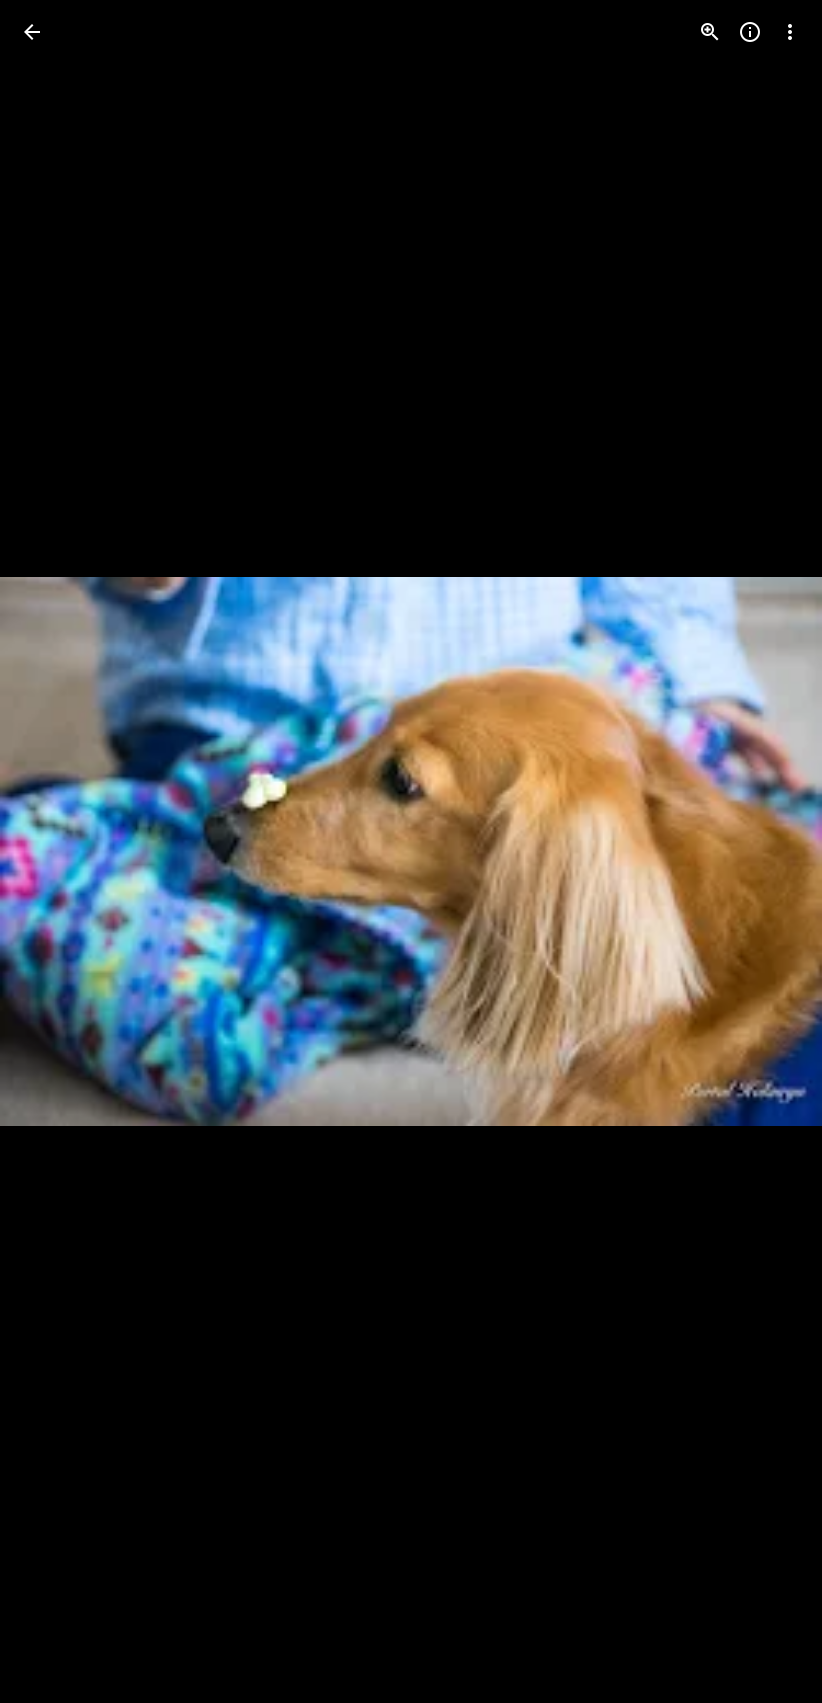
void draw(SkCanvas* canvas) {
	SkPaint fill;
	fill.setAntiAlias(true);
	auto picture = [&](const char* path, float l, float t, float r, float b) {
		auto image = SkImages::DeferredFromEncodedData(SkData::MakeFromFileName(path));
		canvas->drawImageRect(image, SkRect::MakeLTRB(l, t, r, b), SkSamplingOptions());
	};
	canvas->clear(0xFF000000);
	picture("image0.png", 24, 24, 40, 40);
	picture("image1.png", 701, 23, 719, 41);
	picture("image2.png", 740, 22, 760, 42);
	picture("image3.png", 788, 24, 792, 40);
	picture("image4.png", 0, 577, 822, 1126);
}
